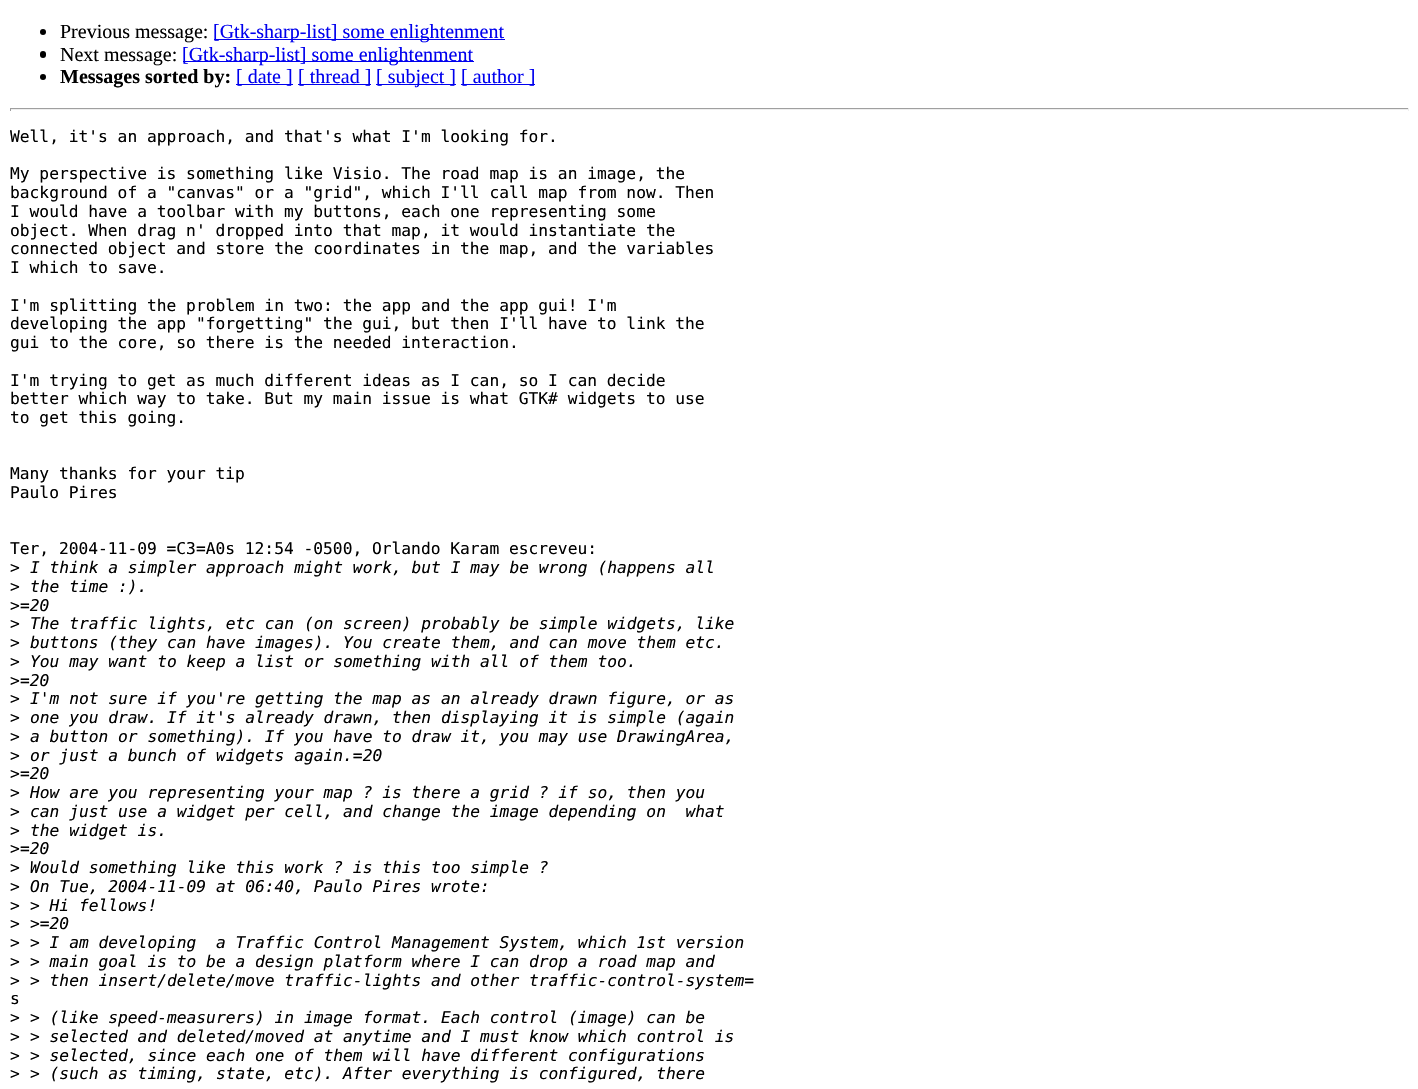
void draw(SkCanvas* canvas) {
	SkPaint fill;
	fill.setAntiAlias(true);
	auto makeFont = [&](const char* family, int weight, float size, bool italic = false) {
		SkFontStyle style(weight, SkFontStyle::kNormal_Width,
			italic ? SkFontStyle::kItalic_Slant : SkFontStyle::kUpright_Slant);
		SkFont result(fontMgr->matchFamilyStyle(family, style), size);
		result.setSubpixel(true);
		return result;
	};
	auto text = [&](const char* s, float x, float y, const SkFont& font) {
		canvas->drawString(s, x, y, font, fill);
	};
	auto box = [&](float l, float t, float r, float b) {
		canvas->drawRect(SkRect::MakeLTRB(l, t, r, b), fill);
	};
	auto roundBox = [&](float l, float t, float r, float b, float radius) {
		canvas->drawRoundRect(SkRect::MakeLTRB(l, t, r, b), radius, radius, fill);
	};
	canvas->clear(0xFFFFFFFF);
	fill.setColor(0xFF000000);
	canvas->drawCircle(43, 32, 3, fill);
	fill.setColor(0xFF0000EE);
	box(214, 39, 505, 40);
	fill.setColor(0xFF000000);
	roundBox(40, 51, 46, 58, 3);
	fill.setColor(0xFF0000EE);
	box(183, 61, 474, 62);
	fill.setColor(0xFF000000);
	canvas->drawCircle(43, 77, 3, fill);
	fill.setColor(0xFF0000EE);
	box(236, 84, 293, 85);
	box(298, 84, 371, 85);
	box(376, 84, 456, 85);
	box(461, 84, 535, 85);
	fill.setColor(0xFF9F9F9F);
	box(10, 108, 1409, 109);
	fill.setColor(0xFFEEEEEE);
	box(1408, 108, 1409, 111);
	box(10, 109, 1409, 110);
	fill.setColor(0xFF9F9F9F);
	box(10, 108, 11, 111);
	auto font1 = makeFont("Liberation Serif", 400, 20);
	fill.setColor(0xFF000000);
	text("Previous message:", 60, 38, font1);
	fill.setColor(0xFF0000EE);
	text("[Gtk-sharp-list] some enlightenment", 213, 38, font1);
	fill.setColor(0xFF000000);
	text("Next message:", 60, 61, font1);
	fill.setColor(0xFF0000EE);
	text("[Gtk-sharp-list] some enlightenment", 182, 61, font1);
	auto font2 = makeFont("Liberation Serif", 700, 20);
	fill.setColor(0xFF000000);
	text("Messages sorted by:", 60, 83, font2);
	fill.setColor(0xFF0000EE);
	text("[ date ]", 236, 83, font1);
	text("[ thread ]", 298, 83, font1);
	text("[ subject ]", 376, 83, font1);
	text("[ author ]", 461, 83, font1);
	auto font3 = makeFont("DejaVu Sans Mono", 400, 16.25f);
	fill.setColor(0xFF000000);
	text("Well, it's an approach, and that's what I'm looking for.", 10, 142, font3);
	text("My perspective is something like Visio. The road map is an image, the", 10, 179, font3);
	text("background of a \"canvas\" or a \"grid\", which I'll call map from now. Then", 10, 198, font3);
	text("I would have a toolbar with my buttons, each one representing some", 10, 217, font3);
	text("object. When drag n' dropped into that map, it would instantiate the", 10, 236, font3);
	text("connected object and store the coordinates in the map, and the variables", 10, 254, font3);
	text("I which to save.", 10, 273, font3);
	text("I'm splitting the problem in two: the app and the app gui! I'm", 10, 311, font3);
	text("developing the app \"forgetting\" the gui, but then I'll have to link the", 10, 329, font3);
	text("gui to the core, so there is the needed interaction.", 10, 348, font3);
	text("I'm trying to get as much different ideas as I can, so I can decide", 10, 386, font3);
	text("better which way to take. But my main issue is what GTK# widgets to use", 10, 404, font3);
	text("to get this going.", 10, 423, font3);
	text("Many thanks for your tip", 10, 479, font3);
	text("Paulo Pires", 10, 498, font3);
	text("Ter, 2004-11-09 =C3=A0s 12:54 -0500, Orlando Karam escreveu:", 10, 554, font3);
	text(">", 10, 573, font3);
	auto font4 = makeFont("DejaVu Sans Mono", 400, 16.25f, true);
	text("I think a simpler approach might work, but I may be wrong (happens all", 30, 573, font4);
	text(">", 10, 592, font3);
	text("the time :).", 30, 592, font4);
	text(">", 10, 611, font3);
	text("=20", 20, 611, font4);
	text(">", 10, 629, font3);
	text("The traffic lights, etc can (on screen) probably be simple widgets, like", 30, 629, font4);
	text(">", 10, 648, font3);
	text("buttons (they can have images). You create them, and can move them etc.", 30, 648, font4);
	text(">", 10, 667, font3);
	text("You may want to keep a list or something with all of them too.", 30, 667, font4);
	text(">", 10, 686, font3);
	text("=20", 20, 686, font4);
	text(">", 10, 704, font3);
	text("I'm not sure if you're getting the map as an already drawn figure, or as", 30, 704, font4);
	text(">", 10, 723, font3);
	text("one you draw. If it's already drawn, then displaying it is simple (again", 30, 723, font4);
	text(">", 10, 742, font3);
	text("a button or something). If you have to draw it, you may use DrawingArea,", 30, 742, font4);
	text(">", 10, 761, font3);
	text("or just a bunch of widgets again.=20", 30, 761, font4);
	text(">", 10, 779, font3);
	text("=20", 20, 779, font4);
	text(">", 10, 798, font3);
	text("How are you representing your map ? is there a grid ? if so, then you", 30, 798, font4);
	text(">", 10, 817, font3);
	text("can just use a widget per cell, and change the image depending on  what", 30, 817, font4);
	text(">", 10, 836, font3);
	text("the widget is.", 30, 836, font4);
	text(">", 10, 854, font3);
	text("=20", 20, 854, font4);
	text(">", 10, 873, font3);
	text("Would something like this work ? is this too simple ?", 30, 873, font4);
	text(">", 10, 892, font3);
	text("On Tue, 2004-11-09 at 06:40, Paulo Pires wrote:", 30, 892, font4);
	text(">", 10, 911, font3);
	text("> Hi fellows!", 30, 911, font4);
	text(">", 10, 929, font3);
	text(">=20", 30, 929, font4);
	text(">", 10, 948, font3);
	text("> I am developing  a Traffic Control Management System, which 1st version", 30, 948, font4);
	text(">", 10, 967, font3);
	text("> main goal is to be a design platform where I can drop a road map and", 30, 967, font4);
	text(">", 10, 986, font3);
	text("> then insert/delete/move traffic-lights and other traffic-control-system=", 30, 986, font4);
	text("s", 10, 1004, font3);
	text(">", 10, 1023, font3);
	text("> (like speed-measurers) in image format. Each control (image) can be", 30, 1023, font4);
	text(">", 10, 1042, font3);
	text("> selected and deleted/moved at anytime and I must know which control is", 30, 1042, font4);
	text(">", 10, 1061, font3);
	text("> selected, since each one of them will have different configurations", 30, 1061, font4);
	text(">", 10, 1079, font3);
	text("> (such as timing, state, etc). After everything is configured, there", 30, 1079, font4);
}
